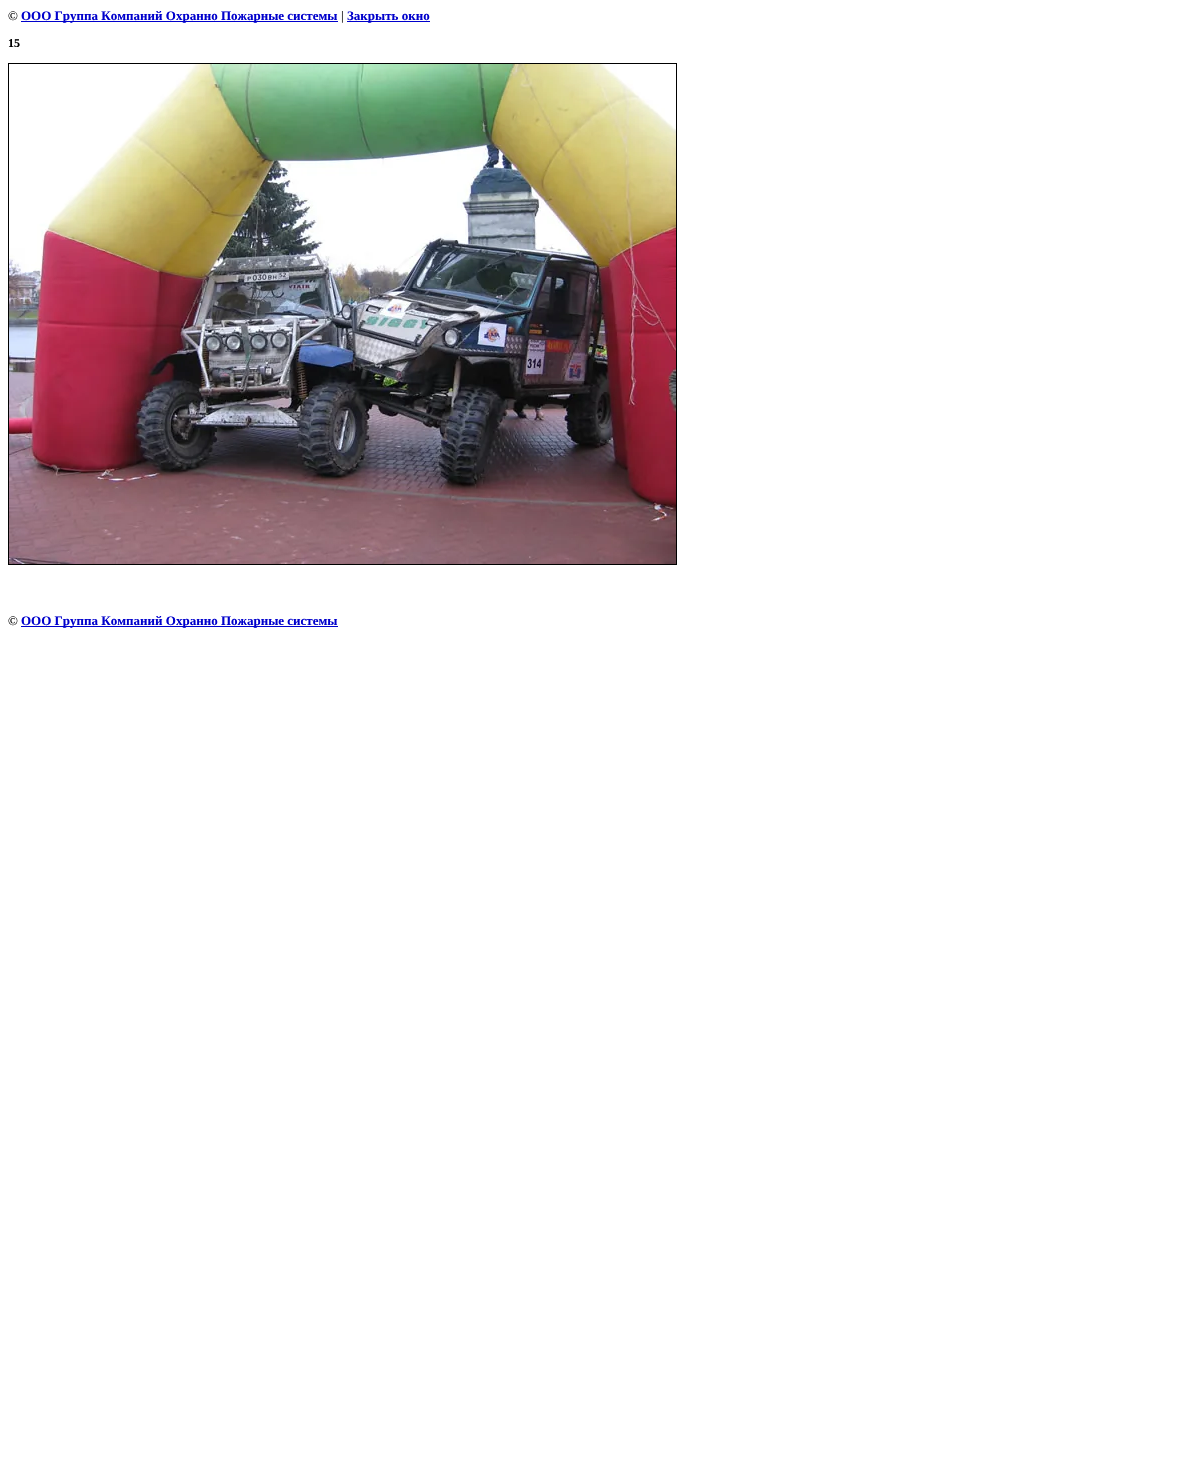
void draw(SkCanvas* canvas) {
	SkPaint fill;
	fill.setAntiAlias(true);
	auto makeFont = [&](const char* family, int weight, float size, bool italic = false) {
		SkFontStyle style(weight, SkFontStyle::kNormal_Width,
			italic ? SkFontStyle::kItalic_Slant : SkFontStyle::kUpright_Slant);
		SkFont result(fontMgr->matchFamilyStyle(family, style), size);
		result.setSubpixel(true);
		return result;
	};
	auto text = [&](const char* s, float x, float y, const SkFont& font) {
		canvas->drawString(s, x, y, font, fill);
	};
	auto box = [&](float l, float t, float r, float b) {
		canvas->drawRect(SkRect::MakeLTRB(l, t, r, b), fill);
	};
	auto picture = [&](const char* path, float l, float t, float r, float b) {
		auto image = SkImages::DeferredFromEncodedData(SkData::MakeFromFileName(path));
		canvas->drawImageRect(image, SkRect::MakeLTRB(l, t, r, b), SkSamplingOptions());
	};
	canvas->clear(0xFFFFFFFF);
	fill.setColor(0xFF0000CC);
	box(21, 21, 338, 22);
	box(347, 21, 430, 22);
	fill.setStyle(SkPaint::kStroke_Style);
	fill.setStrokeWidth(1);
	fill.setColor(0xFF000000);
	canvas->drawRect(SkRect::MakeLTRB(8.5f, 63.5f, 676.5f, 564.5f), fill);
	picture("image0.png", 9, 64, 676, 564);
	fill.setStyle(SkPaint::kFill_Style);
	fill.setColor(0xFF0000CC);
	box(21, 626, 338, 627);
	auto font1 = makeFont("Liberation Serif", 400, 13);
	fill.setColor(0xFF000000);
	text("©", 8, 20, font1);
	auto font2 = makeFont("Liberation Serif", 700, 13);
	fill.setColor(0xFF0000CC);
	text("ООО Группа Компаний Охранно Пожарные системы", 21, 20, font2);
	fill.setColor(0xFF000000);
	text("|", 341, 20, font1);
	fill.setColor(0xFF0000CC);
	text("Закрыть окно", 347, 20, font2);
	auto font3 = makeFont("Liberation Serif", 700, 12);
	fill.setColor(0xFF000000);
	text("15", 8, 47, font3);
	text("©", 8, 625, font1);
	fill.setColor(0xFF0000CC);
	text("ООО Группа Компаний Охранно Пожарные системы", 21, 625, font2);
}
